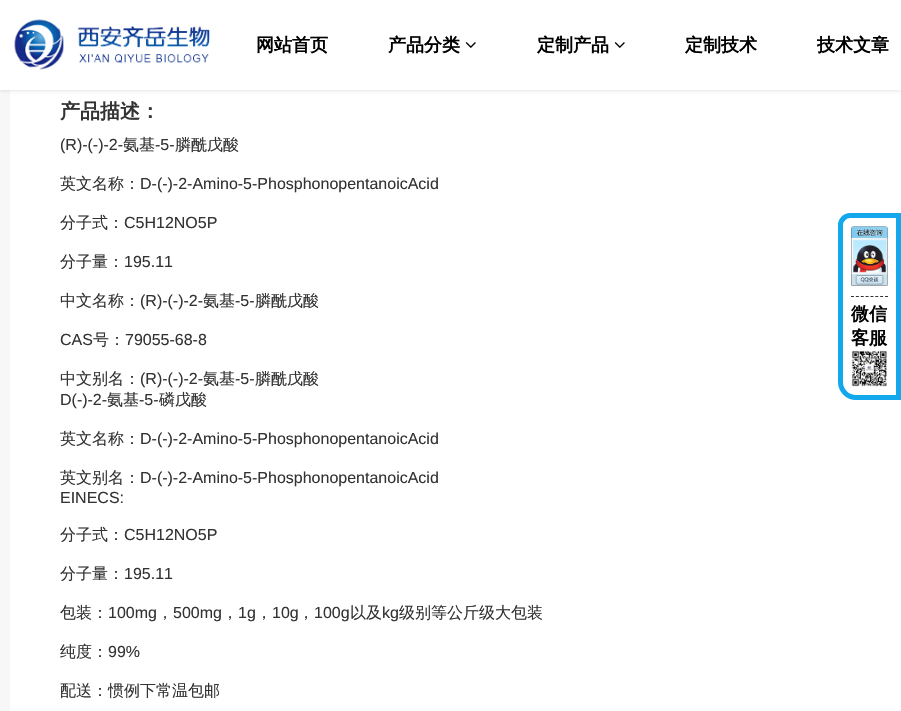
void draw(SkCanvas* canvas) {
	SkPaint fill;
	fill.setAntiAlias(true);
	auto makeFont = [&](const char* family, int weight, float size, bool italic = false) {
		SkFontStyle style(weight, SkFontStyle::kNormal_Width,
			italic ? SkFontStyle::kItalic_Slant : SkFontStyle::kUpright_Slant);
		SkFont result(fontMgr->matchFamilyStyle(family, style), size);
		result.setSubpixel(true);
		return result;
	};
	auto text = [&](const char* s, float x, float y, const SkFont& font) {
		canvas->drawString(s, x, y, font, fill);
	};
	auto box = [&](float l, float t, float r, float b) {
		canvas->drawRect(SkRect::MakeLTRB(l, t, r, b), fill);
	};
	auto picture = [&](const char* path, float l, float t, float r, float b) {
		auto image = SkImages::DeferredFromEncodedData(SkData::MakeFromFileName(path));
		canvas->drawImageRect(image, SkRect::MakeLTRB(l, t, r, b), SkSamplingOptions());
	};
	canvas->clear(0xFFF7F7F7);
	fill.setColor(0xFFFFFFFF);
	box(10, 90, 901, 711);
	fill.setColor(0x1A000000);
	fill.setMaskFilter(SkMaskFilter::MakeBlur(kNormal_SkBlurStyle, 1.5f));
	canvas->drawRect(SkRect::MakeLTRB(0, 1, 901, 91), fill);
	fill.setMaskFilter(nullptr);
	fill.setColor(0xFFFFFFFF);
	box(0, 0, 901, 90);
	picture("image0.png", 14, 19, 210, 70);
	picture("image1.png", 465, 42, 476, 48);
	picture("image1.png", 614, 42, 625, 48);
	fill.setStyle(SkPaint::kStroke_Style);
	fill.setStrokeWidth(5);
	fill.setColor(0xFF13A7EB);
	canvas->drawPath(SkPathBuilder().moveTo(850, 215.5f).lineTo(898.5f, 215.5f).lineTo(898.5f, 397.5f).lineTo(856, 397.5f).cubicTo(847.5f, 397.5f, 840.5f, 390.5f, 840.5f, 382).lineTo(840.5f, 225).cubicTo(840.5f, 220, 845, 215.5f, 850, 215.5f).close().detach(), fill);
	picture("image2.png", 851, 226, 888, 286);
	fill.setStrokeWidth(1);
	fill.setColor(0xFF333333);
	fill.setPathEffect(SkDashPathEffect::Make({{3, 1.86f}}, 0));
	canvas->drawPath(SkPathBuilder().moveTo(851, 296.5f).lineTo(888, 296.5f).detach(), fill);
	fill.setPathEffect(nullptr);
	picture("image3.png", 851, 350, 887, 387);
	auto font1 = makeFont("WenQuanYi Zen Hei", 700, 18);
	fill.setStyle(SkPaint::kFill_Style);
	fill.setColor(0xFF000000);
	text("网站首页", 256, 51, font1);
	text("产品分类", 388, 51, font1);
	text("定制产品", 537, 51, font1);
	text("定制技术", 685, 51, font1);
	text("技术文章", 817, 51, font1);
	auto font2 = makeFont("WenQuanYi Zen Hei", 700, 20);
	fill.setColor(0xFF333333);
	text("产品描述：", 60, 118, font2);
	auto font3 = makeFont("Liberation Sans", 400, 16);
	text("(R)-(-)-2-", 60, 150, font3);
	auto font4 = makeFont("WenQuanYi Zen Hei", 500, 16);
	text("氨基", 123, 150, font4);
	text("-5-", 155, 150, font3);
	text("膦酰戊酸", 175, 150, font4);
	text("英文名称：", 60, 189, font4);
	text("D-(-)-2-Amino-5-PhosphonopentanoicAcid", 140, 189, font3);
	text("分子式：", 60, 228, font4);
	text("C5H12NO5P", 124, 228, font3);
	text("分子量：", 60, 267, font4);
	text("195.11", 124, 267, font3);
	text("中文名称：", 60, 306, font4);
	text("(R)-(-)-2-", 140, 306, font3);
	text("氨基", 203, 306, font4);
	text("-5-", 235, 306, font3);
	text("膦酰戊酸", 255, 306, font4);
	text("CAS", 60, 345, font3);
	text("号：", 93, 345, font4);
	text("79055-68-8", 125, 345, font3);
	text("中文别名：", 60, 384, font4);
	text("(R)-(-)-2-", 140, 384, font3);
	text("氨基", 203, 384, font4);
	text("-5-", 235, 384, font3);
	text("膦酰戊酸", 255, 384, font4);
	text("D(-)-2-", 60, 405, font3);
	text("氨基", 107, 405, font4);
	text("-5-", 139, 405, font3);
	text("磷戊酸", 159, 405, font4);
	text("英文名称：", 60, 444, font4);
	text("D-(-)-2-Amino-5-PhosphonopentanoicAcid", 140, 444, font3);
	text("英文别名：", 60, 483, font4);
	text("D-(-)-2-Amino-5-PhosphonopentanoicAcid", 140, 483, font3);
	text("EINECS:", 60, 503, font3);
	text("分子式：", 60, 540, font4);
	text("C5H12NO5P", 124, 540, font3);
	text("分子量：", 60, 579, font4);
	text("195.11", 124, 579, font3);
	text("包装：", 60, 618, font4);
	text("100mg", 108, 618, font3);
	text("，", 157, 618, font4);
	text("500mg", 173, 618, font3);
	text("，", 222, 618, font4);
	text("1g", 238, 618, font3);
	text("，", 256, 618, font4);
	text("10g", 272, 618, font3);
	text("，", 298, 618, font4);
	text("100g", 314, 618, font3);
	text("以及", 350, 618, font4);
	text("kg", 382, 618, font3);
	text("级别等公斤级大包装", 399, 618, font4);
	text("纯度：", 60, 657, font4);
	text("99%", 108, 657, font3);
	text("配送：惯例下常温包邮", 60, 696, font4);
	fill.setColor(0xFF000000);
	text("微信", 851, 320, font1);
	text("客服", 851, 344, font1);
}
